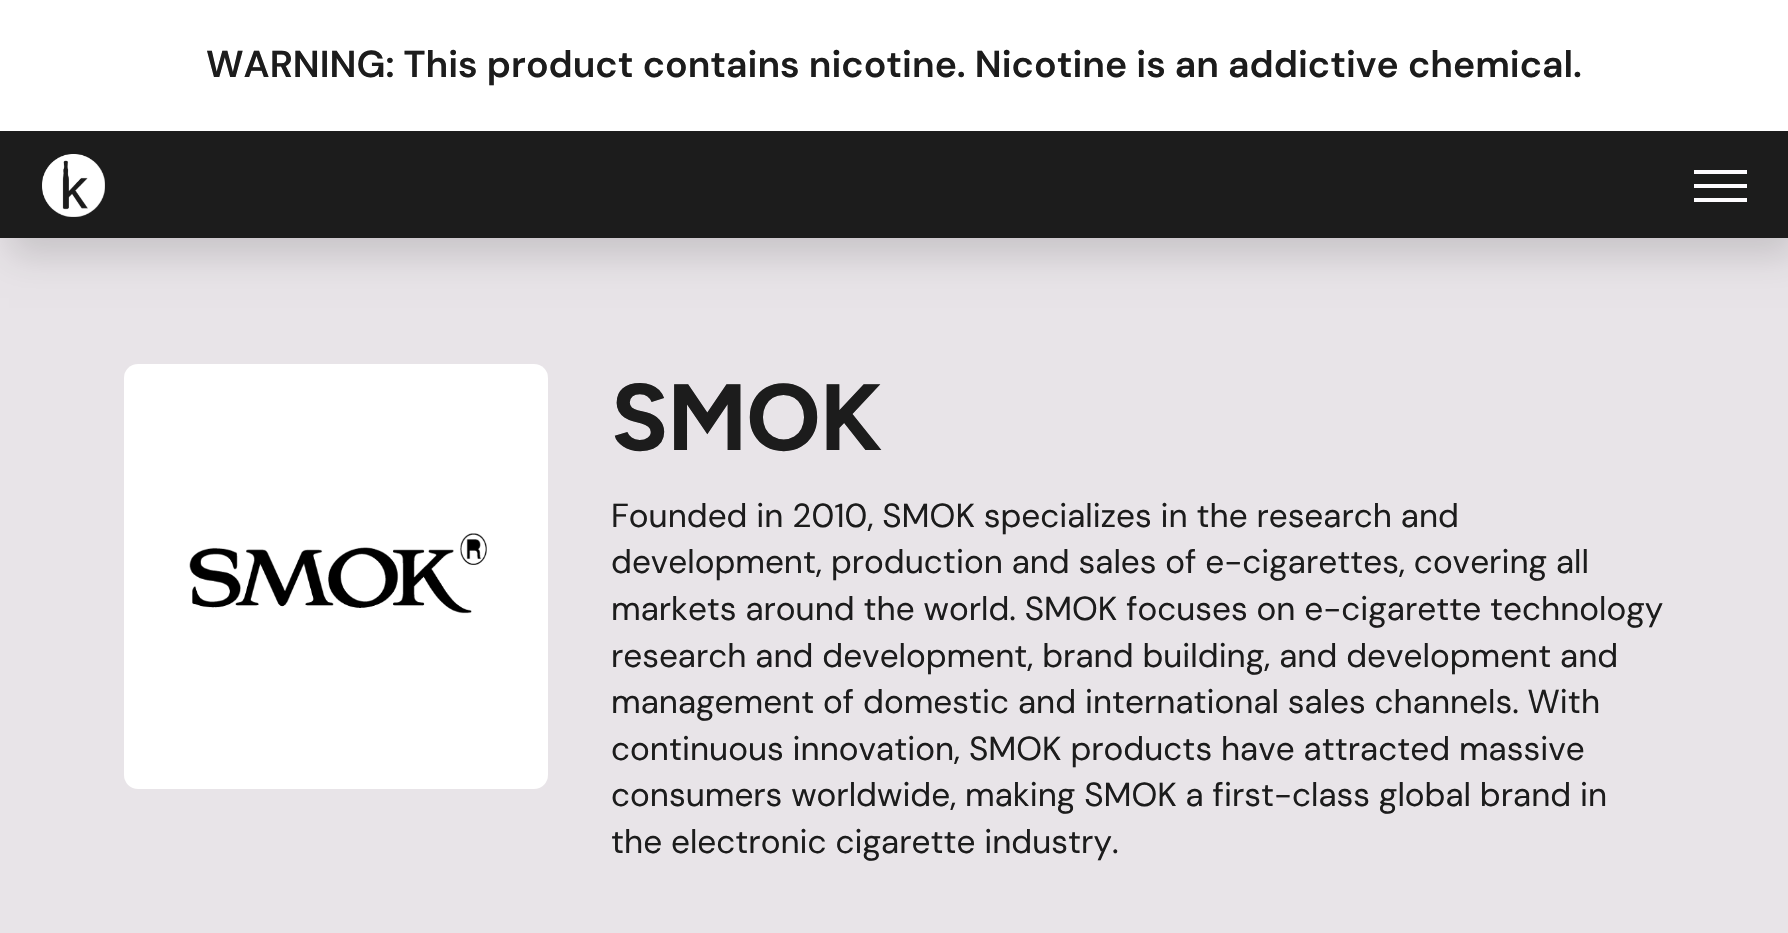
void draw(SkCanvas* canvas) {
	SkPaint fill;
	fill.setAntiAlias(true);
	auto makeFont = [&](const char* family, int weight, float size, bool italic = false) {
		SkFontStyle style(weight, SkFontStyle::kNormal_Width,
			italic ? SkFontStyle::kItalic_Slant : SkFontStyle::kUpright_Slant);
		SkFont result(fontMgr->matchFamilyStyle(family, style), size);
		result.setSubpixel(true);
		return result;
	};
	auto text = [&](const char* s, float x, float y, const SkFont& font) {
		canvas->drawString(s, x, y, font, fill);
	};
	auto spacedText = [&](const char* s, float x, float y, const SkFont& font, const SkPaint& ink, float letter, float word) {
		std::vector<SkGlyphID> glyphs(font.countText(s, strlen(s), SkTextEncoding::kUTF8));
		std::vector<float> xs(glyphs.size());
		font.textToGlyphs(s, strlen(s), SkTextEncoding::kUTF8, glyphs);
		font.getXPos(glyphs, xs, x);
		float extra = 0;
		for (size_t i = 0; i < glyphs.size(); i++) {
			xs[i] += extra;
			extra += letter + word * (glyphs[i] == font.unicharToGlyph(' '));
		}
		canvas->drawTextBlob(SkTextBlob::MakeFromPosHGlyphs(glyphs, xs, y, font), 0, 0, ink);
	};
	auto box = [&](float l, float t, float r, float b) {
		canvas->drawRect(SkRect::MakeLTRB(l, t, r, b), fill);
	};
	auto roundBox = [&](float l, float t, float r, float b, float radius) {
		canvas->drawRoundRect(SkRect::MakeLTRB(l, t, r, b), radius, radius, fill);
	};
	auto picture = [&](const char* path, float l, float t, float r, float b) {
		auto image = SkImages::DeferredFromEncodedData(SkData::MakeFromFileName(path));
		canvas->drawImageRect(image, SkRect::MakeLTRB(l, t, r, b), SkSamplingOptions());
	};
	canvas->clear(0xFFE8E4E8);
	fill.setColor(0x24000000);
	fill.setMaskFilter(SkMaskFilter::MakeBlur(kNormal_SkBlurStyle, 17.5f));
	canvas->drawRect(SkRect::MakeLTRB(9, 18, 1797, 256), fill);
	fill.setMaskFilter(nullptr);
	fill.setColor(0xFF1C1C1C);
	box(0, 131, 1788, 238);
	fill.setColor(0xFFFFFFFF);
	box(0, 0, 1788, 131);
	picture("image0.png", 42, 154, 105, 217);
	fill.setColor(0xFFFEFCFF);
	box(1694, 184, 1747, 188);
	box(1694, 170, 1747, 174);
	box(1694, 198, 1747, 202);
	fill.setColor(0xFFFFFFFF);
	roundBox(124, 364, 548, 789, 14);
	picture("image1.png", 189, 533, 487, 614);
	auto font1 = makeFont("DM Sans", 600, 37.45f);
	fill.setColor(0xFF1C1C1C);
	text("WARNING: This product contains nicotine. Nicotine is an addictive chemical.", 206, 77, font1);
	auto font2 = makeFont("Figtree", 700, 94);
	spacedText("SMOK", 611, 450, font2, fill, -1, 0);
	auto font3 = makeFont("DM Sans", 400, 33.3f);
	text("Founded in 2010, SMOK specializes in the research and", 611, 527, font3);
	text("development, production and sales of e-cigarettes, covering all", 611, 573, font3);
	text("markets around the world. SMOK focuses on e-cigarette technology", 611, 620, font3);
	text("research and development, brand building, and development and", 611, 667, font3);
	text("management of domestic and international sales channels. With", 611, 713, font3);
	text("continuous innovation, SMOK products have attracted massive", 611, 760, font3);
	text("consumers worldwide, making SMOK a first-class global brand in", 611, 806, font3);
	text("the electronic cigarette industry.", 611, 853, font3);
}
